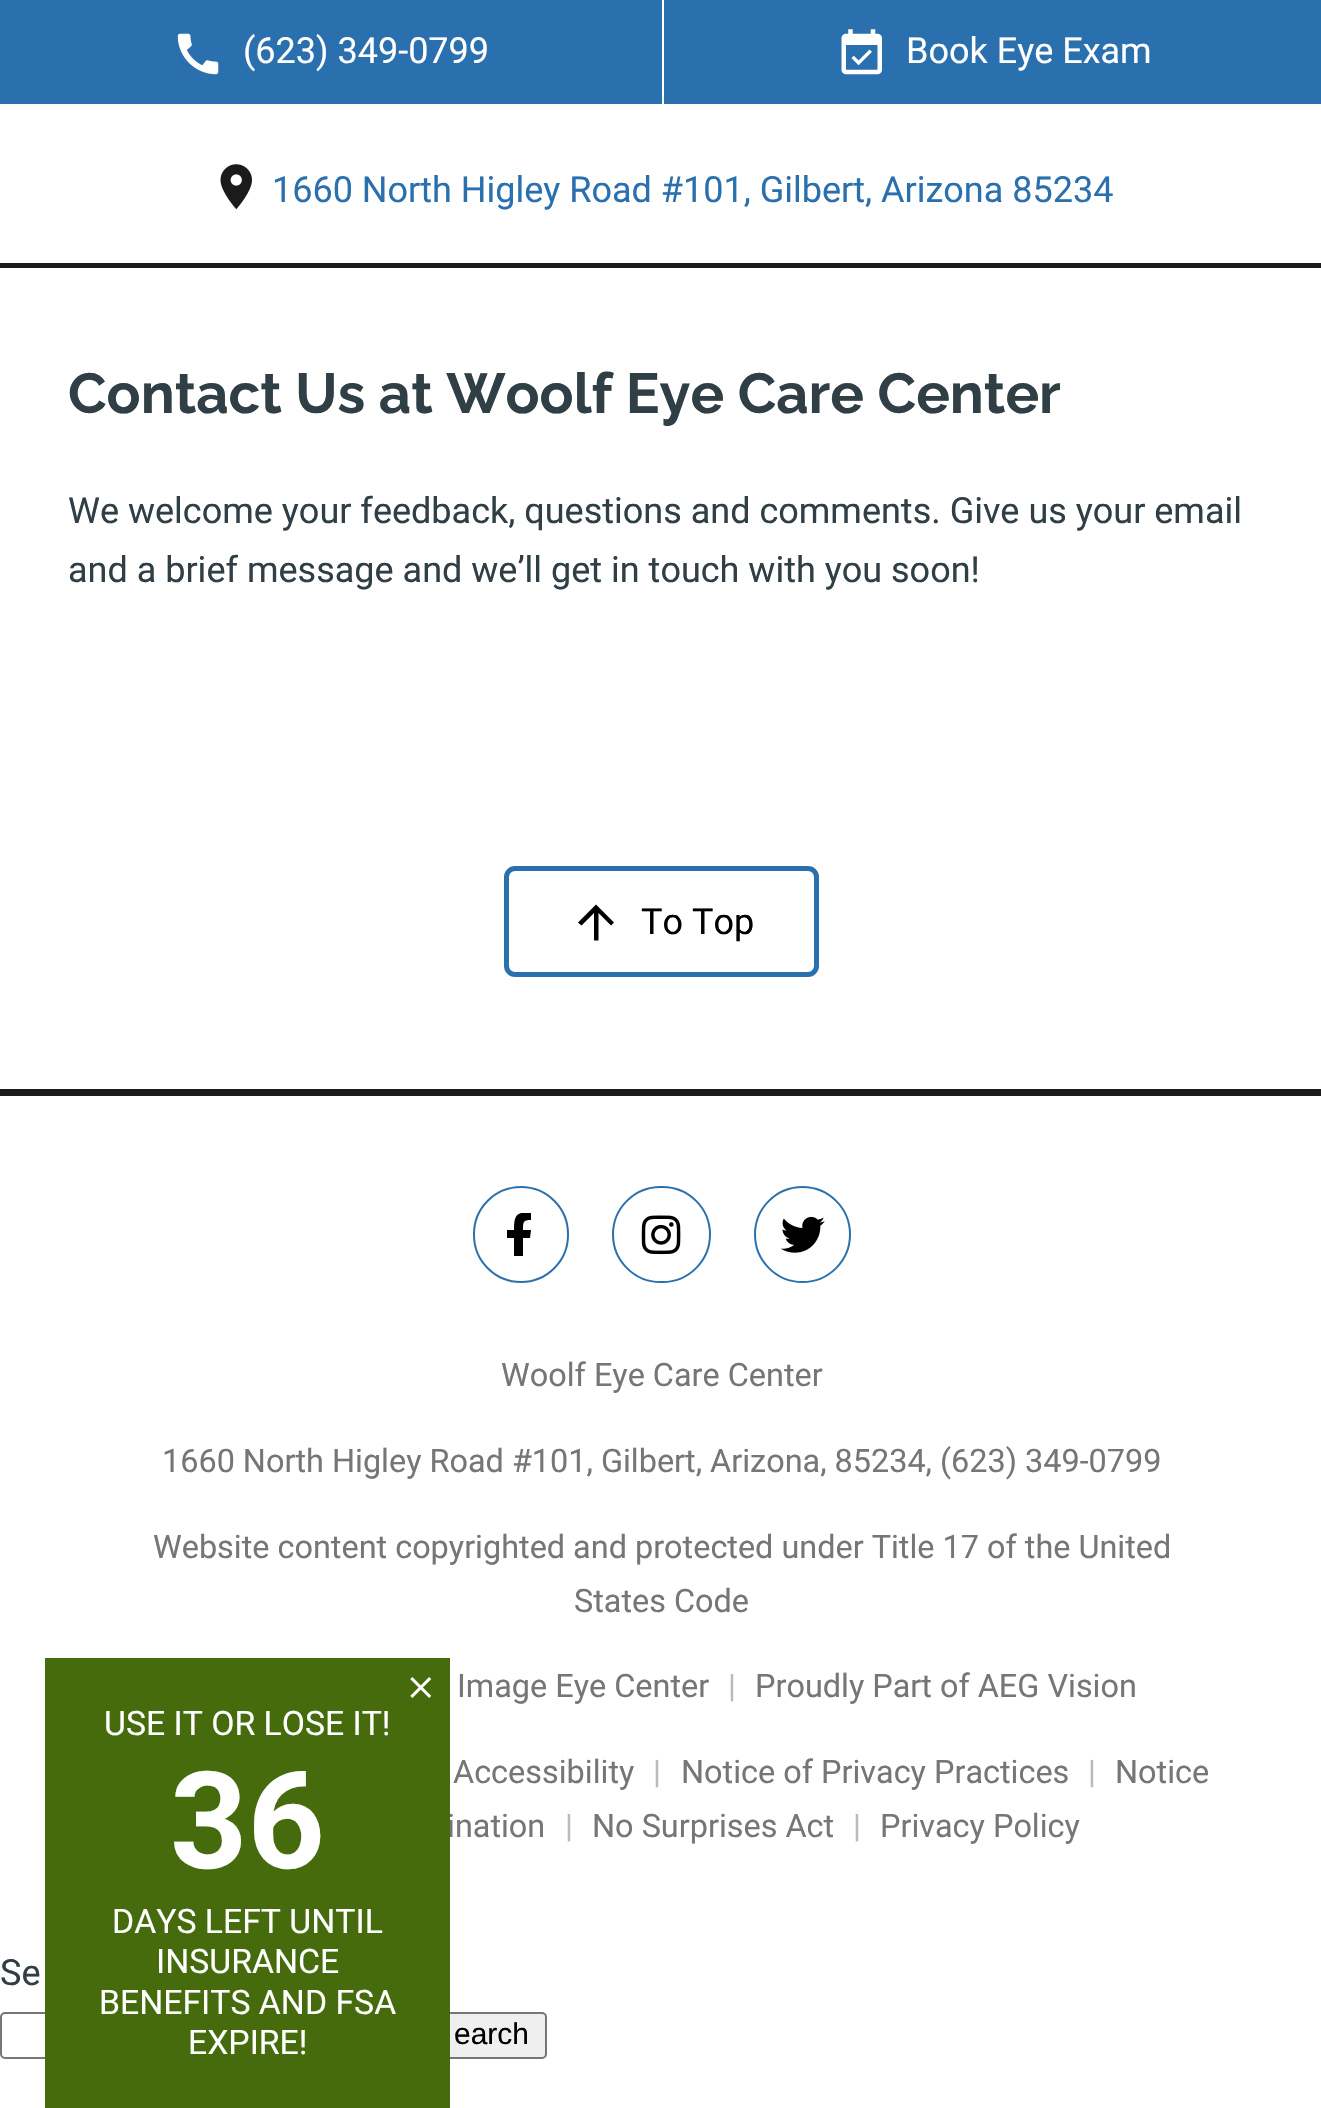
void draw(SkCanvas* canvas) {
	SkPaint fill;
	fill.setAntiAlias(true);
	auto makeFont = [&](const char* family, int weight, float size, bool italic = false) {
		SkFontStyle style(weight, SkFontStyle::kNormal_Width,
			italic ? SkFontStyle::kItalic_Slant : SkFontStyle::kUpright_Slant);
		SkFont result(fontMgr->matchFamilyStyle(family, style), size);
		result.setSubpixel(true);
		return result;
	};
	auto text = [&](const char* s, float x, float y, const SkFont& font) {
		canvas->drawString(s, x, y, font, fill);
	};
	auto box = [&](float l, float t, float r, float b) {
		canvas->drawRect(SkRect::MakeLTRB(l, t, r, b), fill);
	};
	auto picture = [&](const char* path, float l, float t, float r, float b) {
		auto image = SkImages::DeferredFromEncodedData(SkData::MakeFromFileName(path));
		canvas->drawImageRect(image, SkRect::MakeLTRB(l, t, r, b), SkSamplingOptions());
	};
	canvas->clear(0xFFFFFFFF);
	fill.setColor(0xFF2B70AE);
	box(0, 0, 1321, 104);
	picture("image0.png", 177, 33, 219, 75);
	fill.setColor(0xFFFFFFFF);
	box(662, 0, 664, 104);
	picture("image1.png", 841, 29, 882, 75);
	fill.setColor(0xFF1B1B1D);
	box(0, 263, 1321, 268);
	picture("image2.png", 220, 164, 252, 210);
	fill.setStyle(SkPaint::kStroke_Style);
	fill.setStrokeWidth(5);
	fill.setColor(0xFF2B70AE);
	canvas->drawRoundRect(SkRect::MakeLTRB(506.5f, 868.5f, 816.5f, 974.5f), 8.5f, 8.5f, fill);
	fill.setStyle(SkPaint::kFill_Style);
	fill.setColor(0xFF000000);
	canvas->drawPath(SkPathBuilder().moveTo(578, 922.5f).lineTo(581.5f, 925.5f).lineTo(594, 913).lineTo(594, 940.5f).lineTo(598.5f, 940.5f).lineTo(598.5f, 913).lineTo(611, 925.5f).lineTo(614, 922.5f).lineTo(596, 904.5f).close().detach(), fill);
	fill.setColor(0xFF1B1B1D);
	box(0, 1089, 1321, 1096);
	fill.setStyle(SkPaint::kStroke_Style);
	fill.setStrokeWidth(2);
	fill.setColor(0xFF2B70AE);
	canvas->drawRoundRect(SkRect::MakeLTRB(474, 1187, 568, 1282), 47, 47, fill);
	canvas->save();
	canvas->clipRect(SkRect::MakeLTRB(497, 1213, 542, 1256));
	fill.setStyle(SkPaint::kFill_Style);
	fill.setColor(0xFF000000);
	canvas->drawPath(SkPathBuilder().moveTo(530, 1238).lineTo(531, 1230).lineTo(523, 1230).cubicTo(523, 1222, 523, 1220, 531, 1220).lineTo(531, 1213).cubicTo(516, 1211, 514, 1216, 514, 1230).lineTo(507, 1230).lineTo(507, 1238).lineTo(514, 1238).lineTo(514, 1257).lineTo(523, 1257).lineTo(523, 1238).close().detach(), fill);
	canvas->restore();
	fill.setStyle(SkPaint::kStroke_Style);
	fill.setColor(0xFF2B70AE);
	canvas->drawRoundRect(SkRect::MakeLTRB(613, 1187, 710, 1282), 47.5f, 47.5f, fill);
	picture("image3.png", 641, 1215, 681, 1255);
	canvas->drawCircle(802.5f, 1234.5f, 47.5f, fill);
	picture("image4.png", 781, 1216, 825, 1253);
	fill.setColor(0xFF767676);
	canvas->drawRoundRect(SkRect::MakeLTRB(1, 2013, 415, 2058), 4, 4, fill);
	fill.setStyle(SkPaint::kFill_Style);
	fill.setColor(0xFFEFEFEF);
	canvas->drawRoundRect(SkRect::MakeLTRB(417, 2013, 546, 2058), 4, 4, fill);
	fill.setStyle(SkPaint::kStroke_Style);
	fill.setColor(0xFF767676);
	canvas->drawRoundRect(SkRect::MakeLTRB(417, 2013, 546, 2058), 4, 4, fill);
	auto font1 = makeFont("Roboto", 400, 36);
	fill.setStyle(SkPaint::kFill_Style);
	fill.setColor(0xFFFFFFFF);
	text("(623) 349-0799", 243, 63, font1);
	text("Book Eye Exam", 906, 63, font1);
	fill.setColor(0xFF2B70AE);
	text("1660 North Higley Road #101, Gilbert, Arizona 85234", 272, 202, font1);
	auto font2 = makeFont("Raleway", 700, 56.25f);
	fill.setColor(0xFF303F45);
	text("Contact Us at Woolf Eye Care Center", 68, 413, font2);
	text("We welcome your feedback, questions and comments. Give us your email", 68, 523, font1);
	text("and a brief message and we’ll get in touch with you soon!", 68, 582, font1);
	fill.setColor(0xFF000000);
	text("To Top", 641, 934, font1);
	auto font3 = makeFont("Roboto", 400, 32.4f);
	fill.setColor(0xFF767676);
	text("Woolf Eye Care Center", 501, 1386, font3);
	text("1660 North Higley Road #101, Gilbert, Arizona, 85234,", 162, 1472, font3);
	text("(623) 349-0799", 940, 1472, font3);
	text("Website content copyrighted and protected under Title 17 of the United", 153, 1558, font3);
	text("States Code", 574, 1612, font3);
	text("Image Eye Center", 457, 1697, font3);
	fill.setColor(0xFFBBBBBB);
	text("|", 728, 1697, font3);
	fill.setColor(0xFF767676);
	text("Proudly Part of AEG Vision", 755, 1697, font3);
	text("Accessibility", 453, 1783, font3);
	fill.setColor(0xFFBBBBBB);
	text("|", 653, 1783, font3);
	fill.setColor(0xFF767676);
	text("Notice of Privacy Practices", 681, 1783, font3);
	fill.setColor(0xFFBBBBBB);
	text("|", 1088, 1783, font3);
	fill.setColor(0xFF767676);
	text("Notice", 1115, 1783, font3);
	text("ination", 447, 1837, font3);
	fill.setColor(0xFFBBBBBB);
	text("|", 565, 1837, font3);
	fill.setColor(0xFF767676);
	text("No Surprises Act", 592, 1837, font3);
	fill.setColor(0xFFBBBBBB);
	text("|", 853, 1837, font3);
	fill.setColor(0xFF767676);
	text("Privacy Policy", 880, 1837, font3);
	fill.setColor(0xFF456B0C);
	box(45, 1658, 450, 2108);
	picture("image5.png", 410, 1677, 432, 1698);
	auto font4 = makeFont("Roboto", 400, 33.75f);
	fill.setColor(0xFFFFFFFF);
	text("USE IT OR LOSE IT!", 104, 1735, font4);
	auto font5 = makeFont("Roboto", 700, 135);
	text("36", 170, 1868, font5);
	text("DAYS LEFT UNTIL", 112, 1933, font4);
	text("INSURANCE", 156, 1973, font4);
	text("BENEFITS AND FSA", 99, 2014, font4);
	text("EXPIRE!", 188, 2054, font4);
	fill.setColor(0xFF303F45);
	text("Se", 0, 1985, font1);
	auto font6 = makeFont("Liberation Sans", 400, 30);
	fill.setColor(0xFF000000);
	text("earch", 454, 2044, font6);
}
